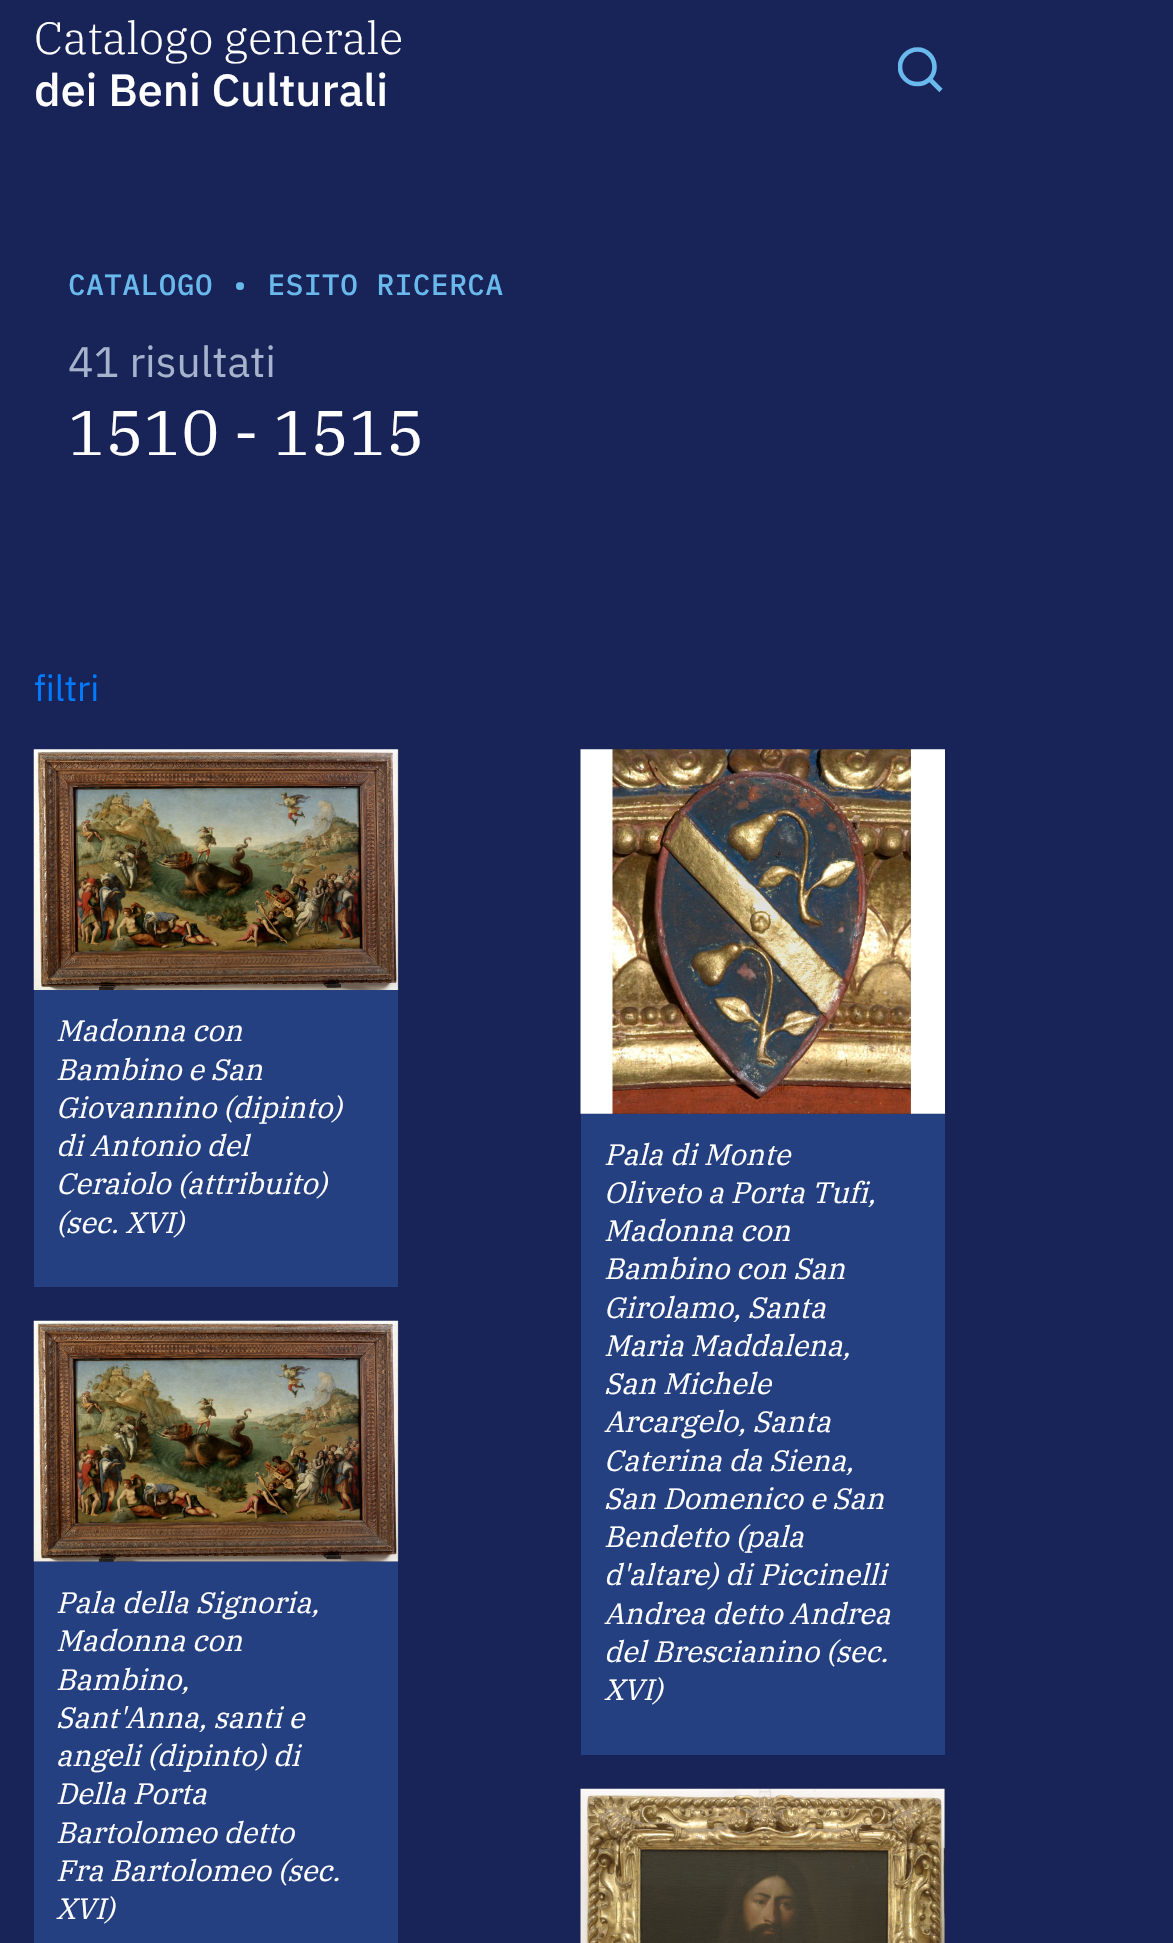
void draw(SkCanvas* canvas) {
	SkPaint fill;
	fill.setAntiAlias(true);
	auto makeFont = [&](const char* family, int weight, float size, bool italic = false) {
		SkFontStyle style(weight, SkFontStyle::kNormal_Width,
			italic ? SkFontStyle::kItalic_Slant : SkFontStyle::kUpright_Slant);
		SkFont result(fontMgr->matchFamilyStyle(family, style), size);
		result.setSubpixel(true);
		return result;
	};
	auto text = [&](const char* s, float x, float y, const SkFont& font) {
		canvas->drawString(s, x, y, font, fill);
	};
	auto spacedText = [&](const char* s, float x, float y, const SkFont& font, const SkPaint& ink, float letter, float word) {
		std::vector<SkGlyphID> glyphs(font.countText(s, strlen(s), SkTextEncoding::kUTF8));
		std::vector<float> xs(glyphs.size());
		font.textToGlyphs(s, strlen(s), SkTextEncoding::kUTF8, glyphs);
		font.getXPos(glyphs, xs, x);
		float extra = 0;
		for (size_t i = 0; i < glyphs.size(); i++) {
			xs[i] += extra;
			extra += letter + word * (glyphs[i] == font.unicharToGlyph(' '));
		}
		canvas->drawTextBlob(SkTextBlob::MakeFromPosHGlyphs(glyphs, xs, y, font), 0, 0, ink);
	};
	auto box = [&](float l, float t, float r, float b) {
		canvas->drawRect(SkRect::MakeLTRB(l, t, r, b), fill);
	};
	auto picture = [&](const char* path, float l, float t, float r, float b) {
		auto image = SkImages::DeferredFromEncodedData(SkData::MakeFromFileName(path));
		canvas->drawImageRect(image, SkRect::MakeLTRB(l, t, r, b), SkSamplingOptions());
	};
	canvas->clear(0xFF182358);
	canvas->save();
	canvas->clipRect(SkRect::MakeLTRB(898, 47, 943, 92));
	fill.setStyle(SkPaint::kStroke_Style);
	fill.setStrokeWidth(4.6f);
	fill.setColor(0xFF69B9EC);
	canvas->drawPath(SkPathBuilder().moveTo(917.5f, 84).cubicTo(927, 84, 934.5f, 76.5f, 934.5f, 67).cubicTo(934.5f, 57.5f, 927, 49.5f, 917.5f, 49.5f).cubicTo(908, 49.5f, 900, 57.5f, 900, 67).cubicTo(900, 76.5f, 908, 84, 917.5f, 84).close().detach(), fill);
	canvas->restore();
	canvas->drawPath(SkPathBuilder().moveTo(930, 79.5f).lineTo(941, 90.5f).detach(), fill);
	picture("image0.png", 33, 749, 399, 990);
	fill.setStyle(SkPaint::kFill_Style);
	fill.setColor(0xFF244080);
	box(34, 990, 398, 1287);
	picture("image1.png", 580, 749, 945, 1114);
	box(581, 1114, 945, 1755);
	picture("image2.png", 33, 1320, 399, 1562);
	box(34, 1562, 398, 1943);
	picture("image3.png", 580, 1788, 945, 1943);
	auto font1 = makeFont("IBM Plex Serif", 300, 45);
	fill.setColor(0xFFFFFFFF);
	text("Catalogo generale", 34, 54, font1);
	auto font2 = makeFont("IBM Plex Sans", 500, 45);
	text("dei Beni Culturali", 34, 106, font2);
	auto font3 = makeFont("IBM Plex Mono", 500, 29.25f);
	fill.setColor(0xFF69B9EC);
	spacedText("CATALOGO • ESITO RICERCA", 68, 295, font3, fill, 0.6f, 0);
	auto font4 = makeFont("IBM Plex Sans", 400, 42.75f);
	fill.setColor(0xFFA7B2CC);
	text("41 risultati", 68, 377, font4);
	auto font5 = makeFont("IBM Plex Serif", 400, 63);
	fill.setColor(0xFFFFFFFF);
	text("1510 - 1515", 68, 455, font5);
	auto font6 = makeFont("IBM Plex Sans", 400, 36);
	fill.setColor(0xFF007BFF);
	text("filtri", 34, 701, font6);
	auto font7 = makeFont("IBM Plex Serif", 400, 29.25f, true);
	fill.setColor(0xFFFFFFFF);
	text("Madonna con", 56, 1041, font7);
	text("Bambino e San", 56, 1080, font7);
	text("Giovannino (dipinto)", 56, 1118, font7);
	text("di Antonio del", 56, 1156, font7);
	text("Ceraiolo (attribuito)", 56, 1194, font7);
	text("(sec. XVI)", 56, 1233, font7);
	text("Pala di Monte", 604, 1165, font7);
	text("Oliveto a Porta Tufi,", 604, 1203, font7);
	text("Madonna con", 604, 1241, font7);
	text("Bambino con San", 604, 1279, font7);
	text("Girolamo, Santa", 604, 1318, font7);
	text("Maria Maddalena,", 604, 1356, font7);
	text("San Michele", 604, 1394, font7);
	text("Arcargelo, Santa", 604, 1432, font7);
	text("Caterina da Siena,", 604, 1471, font7);
	text("San Domenico e San", 604, 1509, font7);
	text("Bendetto (pala", 604, 1547, font7);
	text("d'altare) di Piccinelli", 604, 1585, font7);
	text("Andrea detto Andrea", 604, 1624, font7);
	text("del Brescianino (sec.", 604, 1662, font7);
	text("XVI)", 604, 1700, font7);
	text("Pala della Signoria,", 56, 1613, font7);
	text("Madonna con", 56, 1651, font7);
	text("Bambino,", 56, 1690, font7);
	text("Sant'Anna, santi e", 56, 1728, font7);
	text("angeli (dipinto) di", 56, 1766, font7);
	text("Della Porta", 56, 1804, font7);
	text("Bartolomeo detto", 56, 1843, font7);
	text("Fra Bartolomeo (sec.", 56, 1881, font7);
	text("XVI)", 56, 1919, font7);
}
